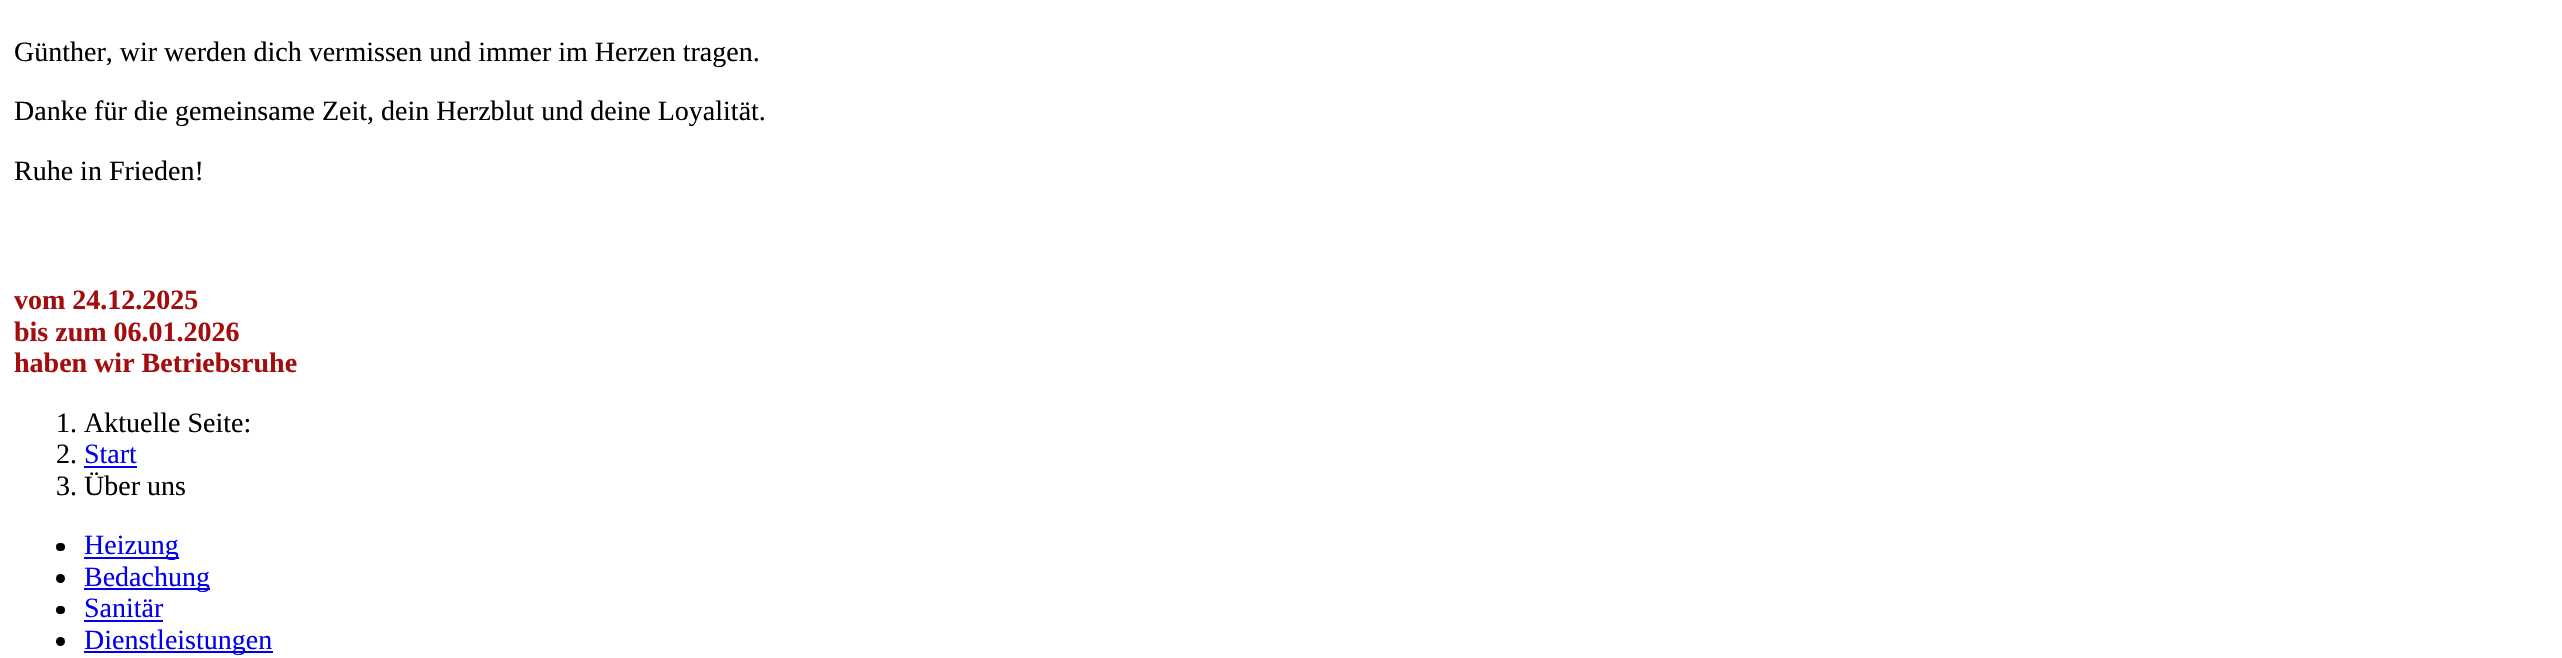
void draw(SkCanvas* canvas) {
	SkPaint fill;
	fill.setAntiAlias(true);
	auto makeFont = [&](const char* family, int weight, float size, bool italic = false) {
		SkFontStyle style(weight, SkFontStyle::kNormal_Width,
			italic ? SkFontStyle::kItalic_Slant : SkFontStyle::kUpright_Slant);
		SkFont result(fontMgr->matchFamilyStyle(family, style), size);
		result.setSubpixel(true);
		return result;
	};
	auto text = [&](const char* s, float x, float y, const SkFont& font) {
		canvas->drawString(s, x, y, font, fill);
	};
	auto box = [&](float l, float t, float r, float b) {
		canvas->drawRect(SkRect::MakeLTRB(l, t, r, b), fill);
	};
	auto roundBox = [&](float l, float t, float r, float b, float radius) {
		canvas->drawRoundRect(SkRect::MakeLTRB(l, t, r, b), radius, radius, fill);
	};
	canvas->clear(0xFFFFFFFF);
	fill.setColor(0xFF0000EE);
	box(84, 466, 137, 468);
	fill.setColor(0xFF000000);
	roundBox(56, 543, 65, 551, 4);
	fill.setColor(0xFF0000EE);
	box(84, 557, 179, 559);
	fill.setColor(0xFF000000);
	canvas->drawCircle(60.5f, 578.5f, 4.5f, fill);
	fill.setColor(0xFF0000EE);
	box(84, 588, 210, 590);
	fill.setColor(0xFF000000);
	roundBox(56, 606, 65, 614, 4);
	fill.setColor(0xFF0000EE);
	box(84, 620, 163, 622);
	fill.setColor(0xFF000000);
	canvas->drawCircle(60.5f, 641.5f, 4.5f, fill);
	fill.setColor(0xFF0000EE);
	box(84, 651, 273, 653);
	auto font1 = makeFont("Liberation Serif", 400, 28);
	fill.setColor(0xFF000000);
	text("Günther, wir werden dich vermissen und immer im Herzen tragen.", 14, 61, font1);
	text("Danke für die gemeinsame Zeit, dein Herzblut und deine Loyalität.", 14, 120, font1);
	text("Ruhe in Frieden!", 14, 180, font1);
	auto font2 = makeFont("Liberation Serif", 700, 28);
	fill.setColor(0xFFA30D0D);
	text("vom 24.12.2025", 14, 309, font2);
	text("bis zum 06.01.2026", 14, 341, font2);
	text("haben wir Betriebsruhe", 14, 372, font2);
	fill.setColor(0xFF000000);
	text("1. Aktuelle Seite:", 56, 432, font1);
	text("2.", 56, 463, font1);
	fill.setColor(0xFF0000EE);
	text("Start", 84, 463, font1);
	fill.setColor(0xFF000000);
	text("3. Über uns", 56, 495, font1);
	fill.setColor(0xFF0000EE);
	text("Heizung", 84, 554, font1);
	text("Bedachung", 84, 586, font1);
	text("Sanitär", 84, 617, font1);
	text("Dienstleistungen", 84, 649, font1);
}
